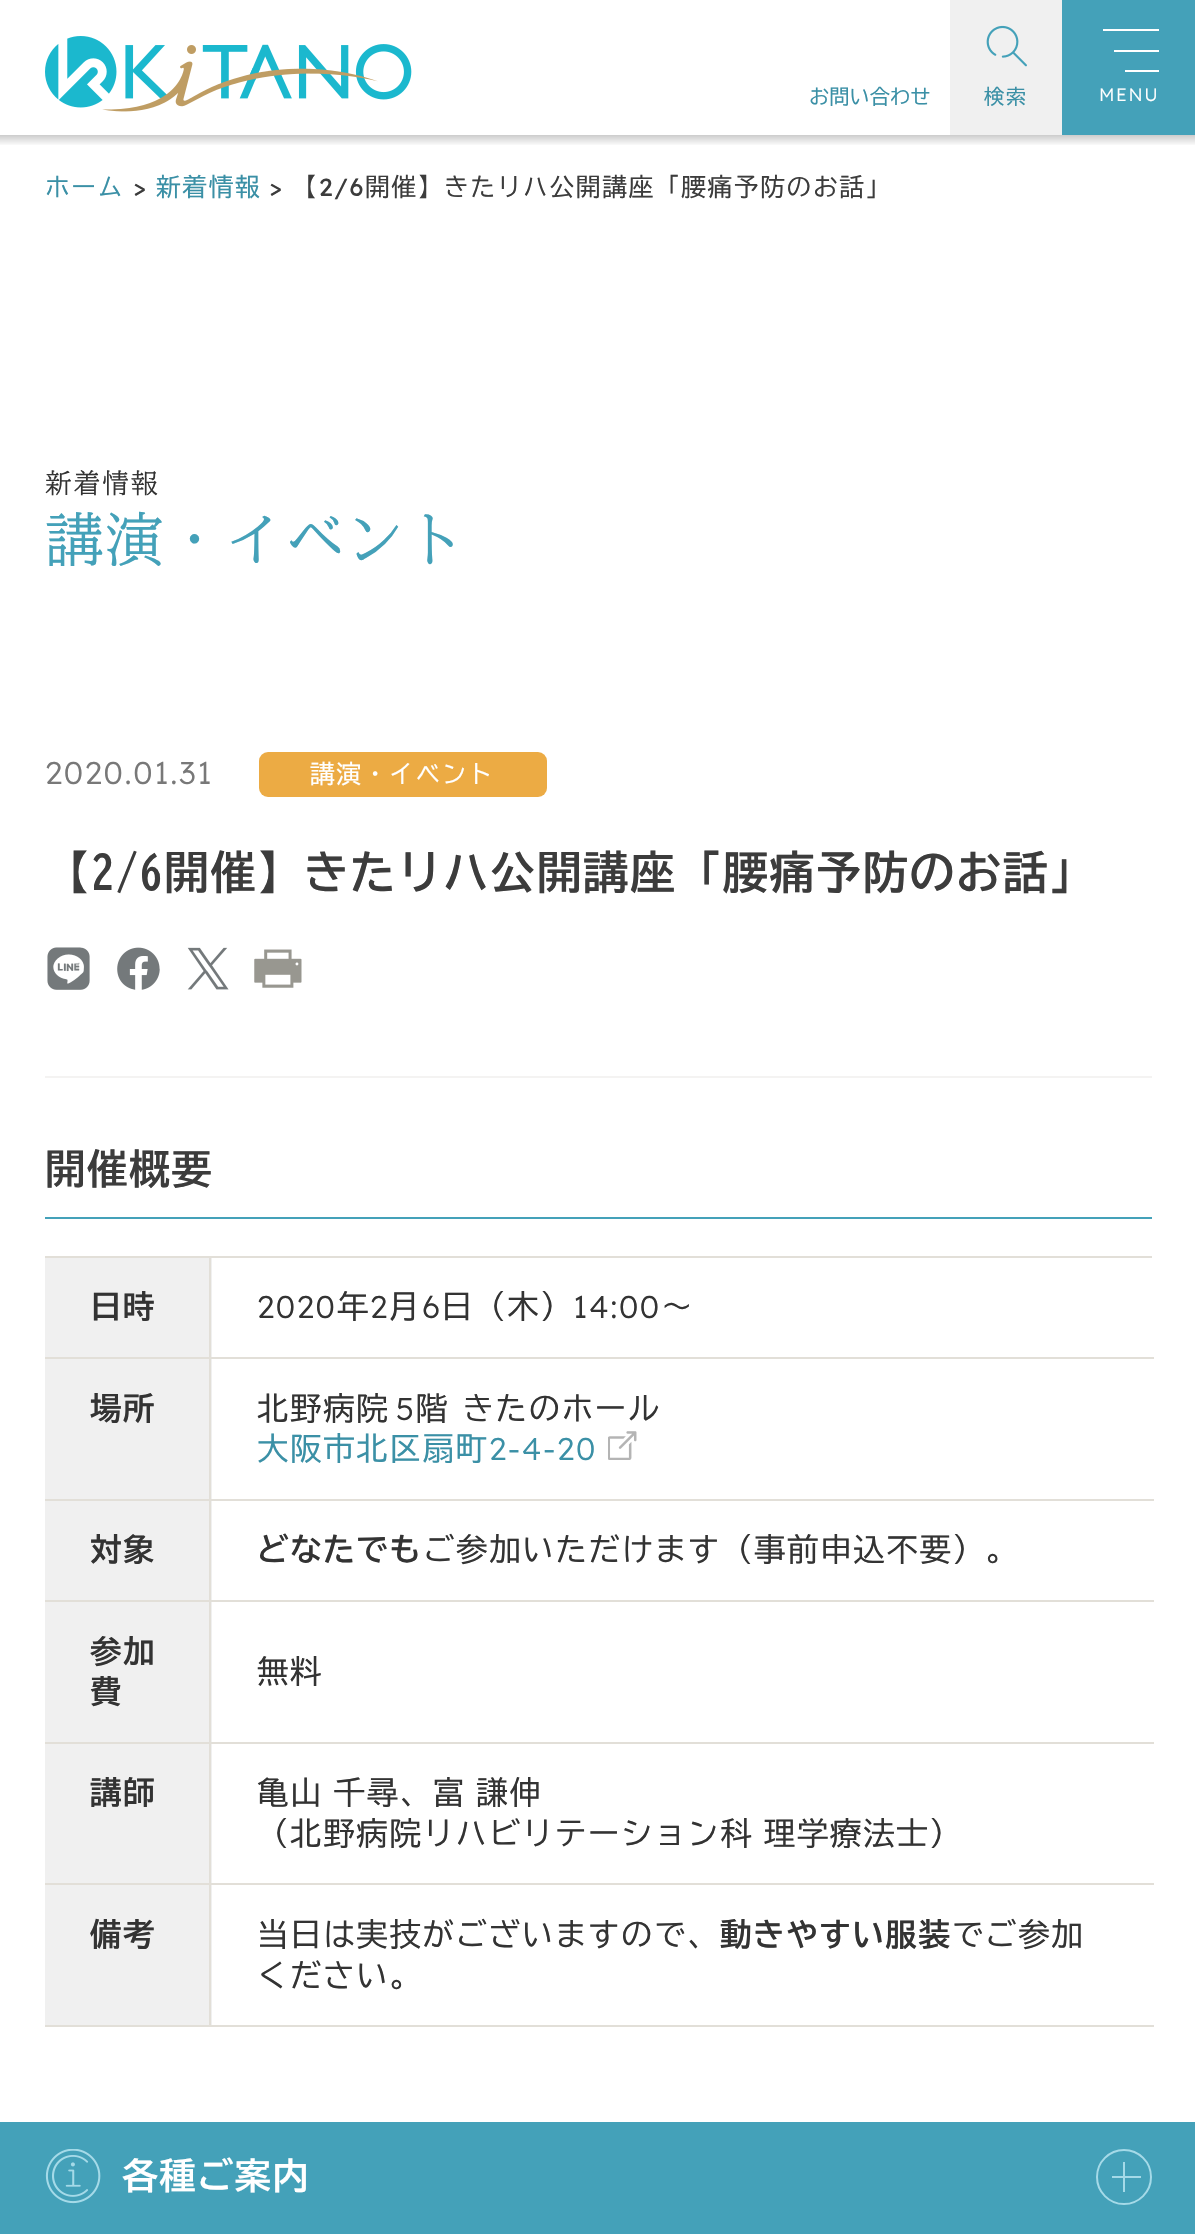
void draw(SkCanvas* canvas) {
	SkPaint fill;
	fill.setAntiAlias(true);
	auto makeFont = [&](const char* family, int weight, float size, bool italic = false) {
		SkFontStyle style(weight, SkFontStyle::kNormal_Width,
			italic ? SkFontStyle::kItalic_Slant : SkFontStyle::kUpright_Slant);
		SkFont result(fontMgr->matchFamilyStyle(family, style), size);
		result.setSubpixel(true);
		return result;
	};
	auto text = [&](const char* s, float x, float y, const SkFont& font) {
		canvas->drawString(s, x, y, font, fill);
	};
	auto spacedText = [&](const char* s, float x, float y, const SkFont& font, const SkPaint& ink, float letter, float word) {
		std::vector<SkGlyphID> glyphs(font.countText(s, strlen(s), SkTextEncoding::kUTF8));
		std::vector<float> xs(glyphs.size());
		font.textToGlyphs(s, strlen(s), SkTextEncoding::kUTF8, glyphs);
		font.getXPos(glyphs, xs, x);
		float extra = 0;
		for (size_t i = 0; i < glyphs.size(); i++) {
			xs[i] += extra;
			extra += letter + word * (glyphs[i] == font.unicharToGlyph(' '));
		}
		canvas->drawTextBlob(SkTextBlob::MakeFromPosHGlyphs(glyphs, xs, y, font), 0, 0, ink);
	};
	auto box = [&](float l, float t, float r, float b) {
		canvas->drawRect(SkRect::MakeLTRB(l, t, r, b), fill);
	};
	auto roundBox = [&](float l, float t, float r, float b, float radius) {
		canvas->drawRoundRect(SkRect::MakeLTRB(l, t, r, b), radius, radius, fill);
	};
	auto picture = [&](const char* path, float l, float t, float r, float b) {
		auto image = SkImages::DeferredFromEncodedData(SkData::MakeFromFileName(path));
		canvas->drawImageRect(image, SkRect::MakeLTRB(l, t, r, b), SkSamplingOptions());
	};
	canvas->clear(0xFFFFFFFF);
	picture("image0.png", 45, 36, 412, 112);
	fill.setColor(0xFFF0F0F0);
	box(950, 0, 1062, 135);
	picture("image1.png", 986, 25, 1027, 67);
	fill.setColor(0xFF44A1B9);
	box(1062, 0, 1195, 135);
	fill.setColor(0xFFFFFFFF);
	box(1103, 29, 1159, 31);
	box(1114, 50, 1159, 52);
	box(1125, 70, 1159, 72);
	{
		const SkColor colors[] = {0xFFCCCCCC, 0xFFFFFFFF};
		const float stops[] = {0, 1};
		const SkPoint ends[] = {{599, 135}, {599, 146}};
		fill.setShader(SkGradientShader::MakeLinear(ends, colors, stops, 2, SkTileMode::kClamp));
		fill.setAlpha(255);
	}
	box(0, 135, 1195, 145);
	fill.setShader(nullptr);
	fill.setColor(0xFFECAB44);
	roundBox(259, 752, 547, 797, 9);
	picture("image2.png", 47, 947, 90, 990);
	picture("image3.png", 117, 947, 160, 990);
	picture("image4.png", 187, 947, 229, 990);
	picture("image5.png", 254, 949, 302, 988);
	fill.setColor(0xFFF4F3F2);
	box(45, 1076, 1152, 1078);
	fill.setColor(0xFF44A1B9);
	box(45, 1217, 1152, 1219);
	fill.setColor(0xFFE2DFD8);
	box(45, 1256, 1152, 1258);
	fill.setColor(0xFFF0F0F0);
	box(45, 1258, 212, 1357);
	box(45, 1359, 212, 1499);
	box(45, 1501, 212, 1600);
	box(45, 1602, 212, 1742);
	box(45, 1744, 212, 1883);
	box(45, 1885, 212, 2025);
	fill.setColor(0xFFE2DFD8);
	box(209, 2025, 1154, 2027);
	box(209, 1883, 211, 2027);
	box(209, 1883, 1154, 1885);
	box(209, 1742, 211, 1886);
	box(209, 1742, 1154, 1744);
	box(209, 1600, 211, 1744);
	box(209, 1600, 1154, 1602);
	box(209, 1499, 211, 1602);
	box(209, 1499, 1154, 1501);
	box(209, 1357, 211, 1501);
	box(209, 1357, 1154, 1359);
	box(209, 1256, 211, 1359);
	box(45, 1357, 212, 1359);
	box(45, 1499, 212, 1501);
	picture("image6.png", 608, 1431, 637, 1460);
	box(45, 1600, 212, 1602);
	box(45, 1742, 212, 1744);
	box(45, 1883, 212, 1885);
	box(45, 2025, 212, 2027);
	fill.setColor(0xFF44A1B9);
	box(0, 2122, 1195, 2234);
	picture("image7.png", 45, 2149, 101, 2204);
	fill.setStyle(SkPaint::kStroke_Style);
	fill.setStrokeWidth(2);
	fill.setColor(0xFFA5DAE8);
	canvas->drawCircle(1124, 2177, 27, fill);
	fill.setStyle(SkPaint::kFill_Style);
	box(1112, 2176, 1141, 2178);
	box(1123, 2162, 1125, 2192);
	auto font1 = makeFont("BIZ UDGothic", 400, 20.25f);
	fill.setColor(0xFF3B90A6);
	text("お問い合わせ", 809, 104, font1);
	spacedText("検索", 984, 104, font1, fill, 1.6f, 0);
	auto font2 = makeFont("Lexend", 300, 18);
	fill.setColor(0xFFFFFFFF);
	spacedText("MENU", 1099, 101, font2, fill, 1.6f, 0);
	auto font3 = makeFont("BIZ UDGothic", 400, 24.75f);
	fill.setColor(0xFF3B90A6);
	spacedText("ホーム", 45, 196, font3, fill, 1.6f, 0);
	auto font4 = makeFont("Lexend", 400, 24.75f);
	fill.setColor(0xFF3C3C3C);
	spacedText(">", 133, 196, font4, fill, 1.6f, 0);
	fill.setColor(0xFF3B90A6);
	spacedText("新着情報", 156, 196, font3, fill, 1.6f, 0);
	fill.setColor(0xFF3C3C3C);
	spacedText(">", 269, 196, font4, fill, 1.6f, 0);
	spacedText("【", 292, 196, font3, fill, 1.6f, 0);
	spacedText("2/6", 319, 196, font4, fill, 1.6f, 0);
	spacedText("開催】きたリハ公開講座「腰痛予防のお話」", 365, 196, font3, fill, 1.6f, 0);
	auto font5 = makeFont("BIZ UDMincho", 400, 27);
	fill.setColor(0xFF333333);
	spacedText("新着情報", 45, 493, font5, fill, 1.6f, 0);
	auto font6 = makeFont("BIZ UDMincho", 400, 58.5f);
	fill.setColor(0xFF44A1B9);
	spacedText("講演・イベント", 45, 561, font6, fill, 1.6f, 0);
	auto font7 = makeFont("Lexend", 300, 31.5f);
	fill.setColor(0xFF787878);
	spacedText("2020.01.31", 45, 784, font7, fill, 1.6f, 0);
	fill.setColor(0xFFFFFFFF);
	spacedText("講演・イベント", 310, 783, font3, fill, 1.6f, 0);
	auto font8 = makeFont("BIZ UDGothic", 700, 45);
	fill.setColor(0xFF3C3C3C);
	spacedText("【2/6開催】きたリハ公開講座「腰痛予防のお話」", 45, 889, font8, fill, 1.6f, 0);
	auto font9 = makeFont("BIZ UDGothic", 700, 40.5f);
	spacedText("開催概要", 45, 1184, font9, fill, 1.6f, 0);
	auto font10 = makeFont("BIZ UDGothic", 700, 31.5f);
	fill.setColor(0xFF333333);
	spacedText("日時", 90, 1318, font10, fill, 1.6f, 0);
	spacedText("2020", 257, 1318, font7, fill, 1.6f, 0);
	auto font11 = makeFont("BIZ UDGothic", 400, 31.5f);
	spacedText("年", 337, 1318, font11, fill, 1.6f, 0);
	spacedText("2", 370, 1318, font7, fill, 1.6f, 0);
	spacedText("月", 388, 1318, font11, fill, 1.6f, 0);
	spacedText("6", 422, 1318, font7, fill, 1.6f, 0);
	spacedText("日（木）", 441, 1318, font11, fill, 1.6f, 0);
	spacedText("14:00", 573, 1318, font7, fill, 1.6f, 0);
	spacedText("～", 661, 1318, font11, fill, 1.6f, 0);
	spacedText("場所", 90, 1420, font10, fill, 1.6f, 0);
	spacedText("北野病院", 257, 1420, font11, fill, 1.6f, 0);
	spacedText("5", 396, 1420, font7, fill, 1.6f, 0);
	spacedText("階 きたのホール", 416, 1420, font11, fill, 1.6f, -4);
	fill.setColor(0xFF3B90A6);
	spacedText("大阪市北区扇町", 257, 1460, font11, fill, 1.6f, 0);
	spacedText("2-4-20", 489, 1460, font7, fill, 1.6f, 0);
	fill.setColor(0xFF333333);
	spacedText("対象", 90, 1561, font10, fill, 1.6f, 0);
	spacedText("どなたでも", 257, 1561, font10, fill, 1.6f, 0);
	spacedText("ご参加いただけます（事前申込不要）。", 423, 1561, font11, fill, 1.6f, 0);
	spacedText("参加", 90, 1663, font10, fill, 1.6f, 0);
	spacedText("費", 90, 1703, font10, fill, 1.6f, 0);
	spacedText("無料", 257, 1683, font11, fill, 1.6f, 0);
	spacedText("講師", 90, 1804, font10, fill, 1.6f, 0);
	spacedText("亀山 千尋、富 謙伸", 257, 1804, font11, fill, 1.6f, -7);
	spacedText("（北野病院リハビリテーション科 理学療法士）", 257, 1845, font11, fill, 1.6f, -7);
	spacedText("備考", 90, 1946, font10, fill, 1.6f, 0);
	spacedText("当日は実技がございますので、", 257, 1946, font11, fill, 1.6f, 0);
	spacedText("動きやすい服装", 720, 1946, font10, fill, 1.6f, 0);
	spacedText("でご参加", 952, 1946, font11, fill, 1.6f, 0);
	spacedText("ください。", 257, 1987, font11, fill, 1.6f, 0);
	auto font12 = makeFont("BIZ UDGothic", 700, 36);
	fill.setColor(0xFFFFFFFF);
	spacedText("各種ご案内", 122, 2189, font12, fill, 1.6f, 0);
}
